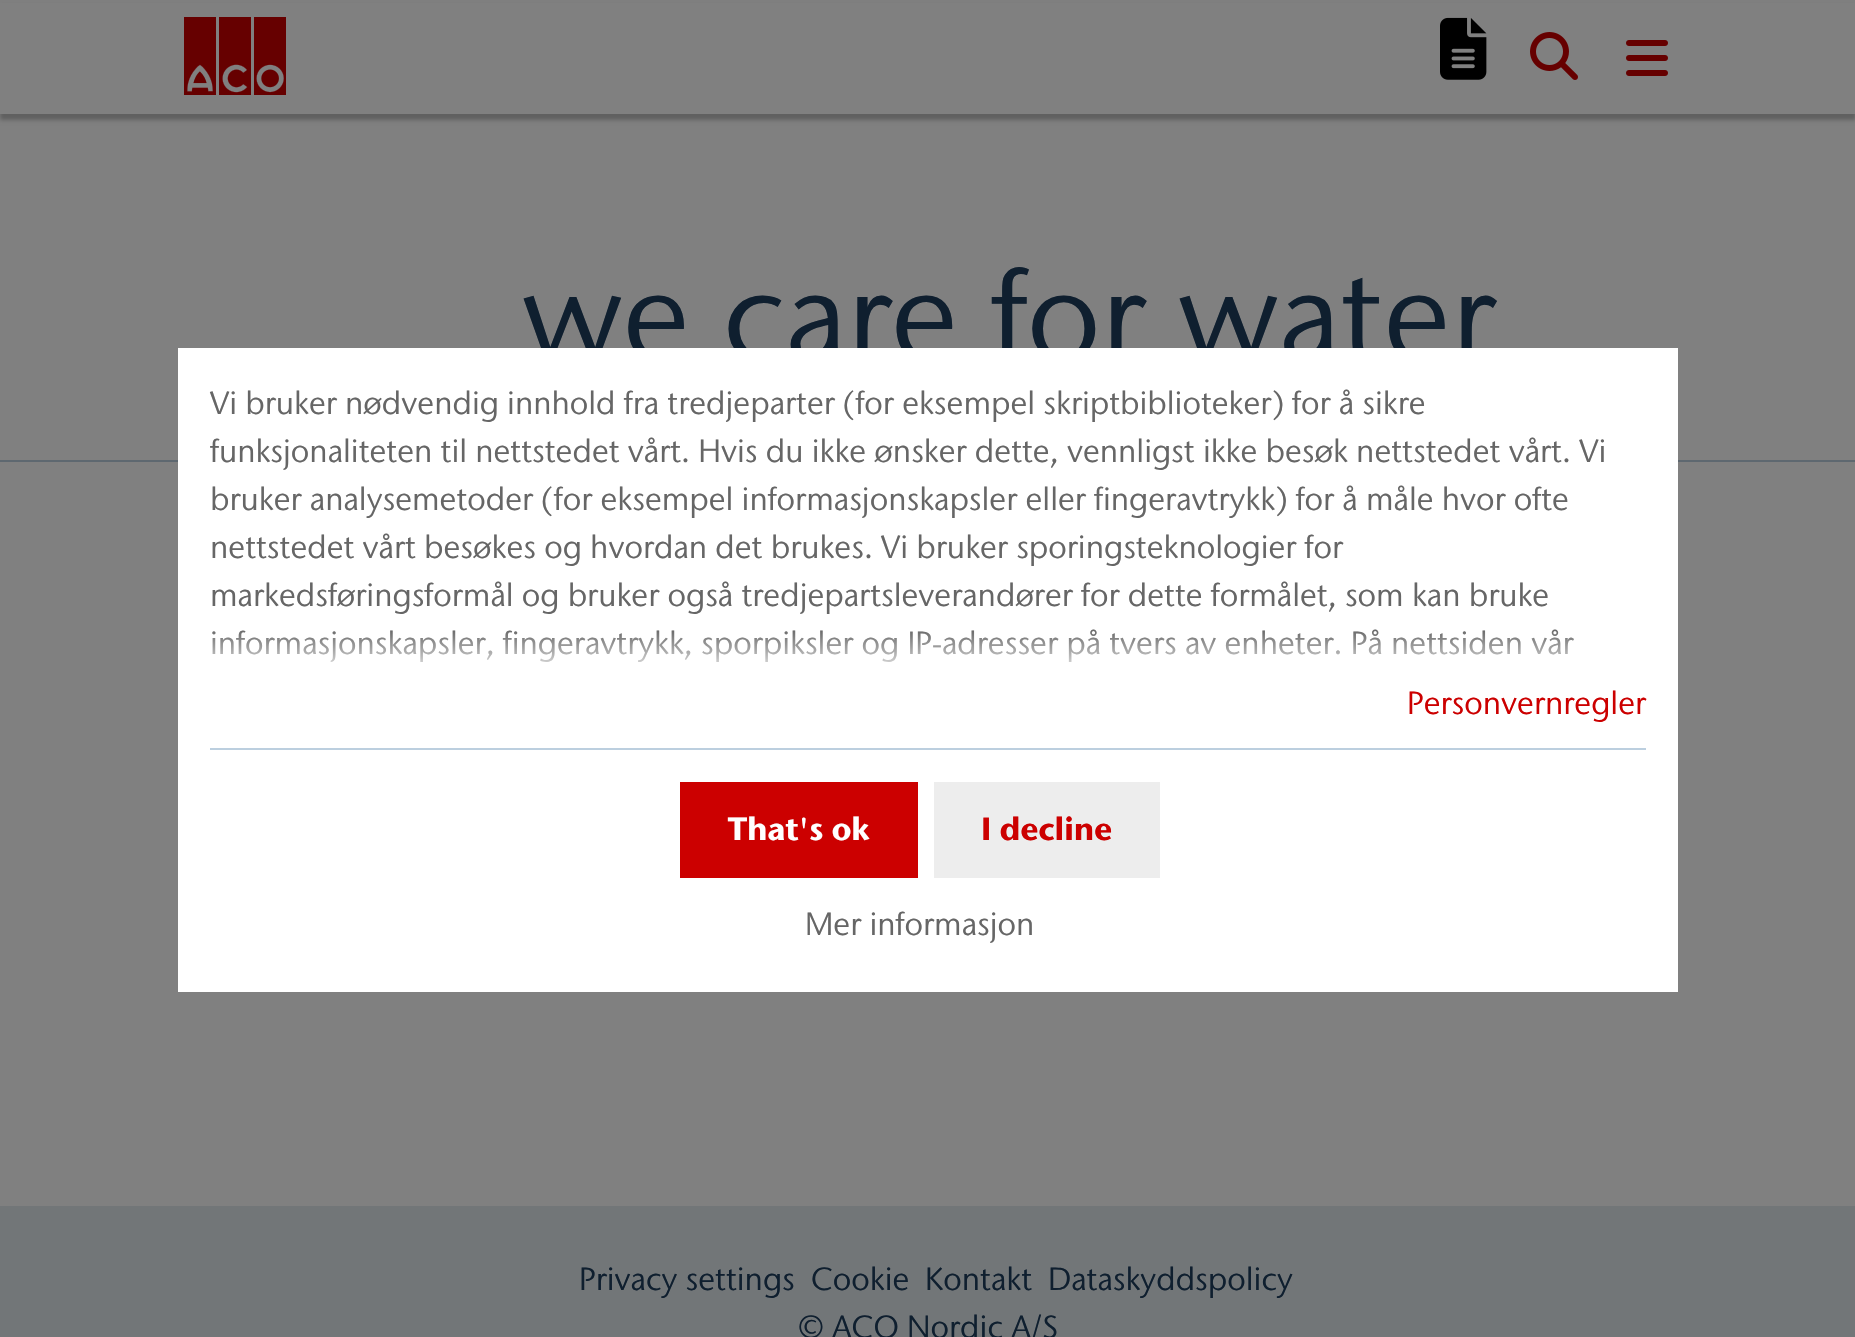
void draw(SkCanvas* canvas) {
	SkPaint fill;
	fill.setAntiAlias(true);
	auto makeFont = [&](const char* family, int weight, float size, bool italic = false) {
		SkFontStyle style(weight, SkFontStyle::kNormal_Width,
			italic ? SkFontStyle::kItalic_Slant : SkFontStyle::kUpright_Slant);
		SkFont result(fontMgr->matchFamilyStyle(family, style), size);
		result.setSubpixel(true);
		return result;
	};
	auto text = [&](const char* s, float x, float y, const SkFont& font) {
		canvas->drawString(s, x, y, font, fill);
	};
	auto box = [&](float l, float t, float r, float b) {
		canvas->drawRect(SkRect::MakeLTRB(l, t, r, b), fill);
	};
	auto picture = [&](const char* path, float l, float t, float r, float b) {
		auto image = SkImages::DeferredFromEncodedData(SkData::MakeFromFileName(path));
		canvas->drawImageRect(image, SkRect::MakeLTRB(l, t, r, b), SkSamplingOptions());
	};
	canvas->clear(0xFF808080);
	fill.setColor(0x40000000);
	fill.setMaskFilter(SkMaskFilter::MakeBlur(kNormal_SkBlurStyle, 2));
	canvas->drawRect(SkRect::MakeLTRB(0, 6, 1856, 120), fill);
	fill.setMaskFilter(nullptr);
	fill.setColor(0xFF808080);
	box(0, 3, 1855, 114);
	picture("image0.png", 184, 17, 286, 95);
	picture("image1.png", 1440, 17, 1487, 80);
	picture("image2.png", 1530, 32, 1578, 80);
	picture("image3.png", 1626, 40, 1668, 76);
	fill.setColor(0xFF5E6870);
	box(0, 460, 1855, 462);
	fill.setColor(0xFF727678);
	box(0, 1206, 1855, 1337);
	auto font1 = makeFont("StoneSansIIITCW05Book", 400, 128);
	fill.setColor(0xFF0F1F2F);
	text("we care for water", 522, 361, font1);
	auto font2 = makeFont("StoneSansIIITCW05Book", 400, 32);
	text("Privacy settings", 579, 1290, font2);
	text("Cookie", 811, 1290, font2);
	text("Kontakt", 925, 1290, font2);
	text("Dataskyddspolicy", 1048, 1290, font2);
	text("© ACO Nordic A/S", 798, 1338, font2);
	fill.setColor(0xFFFFFFFF);
	box(178, 348, 1678, 992);
	fill.setColor(0xFF666666);
	text("Vi bruker nødvendig innhold fra tredjeparter (for eksempel skriptbiblioteker) for å sikre", 210, 414, font2);
	text("funksjonaliteten til nettstedet vårt. Hvis du ikke ønsker dette, vennligst ikke besøk nettstedet vårt. Vi", 210, 462, font2);
	text("bruker analysemetoder (for eksempel informasjonskapsler eller fingeravtrykk) for å måle hvor ofte", 210, 510, font2);
	text("nettstedet vårt besøkes og hvordan det brukes. Vi bruker sporingsteknologier for", 210, 558, font2);
	text("markedsføringsformål og bruker også tredjepartsleverandører for dette formålet, som kan bruke", 210, 606, font2);
	text("informasjonskapsler, fingeravtrykk, sporpiksler og IP-adresser på tvers av enheter. På nettsiden vår", 210, 654, font2);
	{
		const SkColor colors[] = {0x00FFFFFF, 0xFFFFFFFF};
		const float stops[] = {0, 1};
		const SkPoint ends[] = {{928, 629}, {928, 679}};
		fill.setShader(SkGradientShader::MakeLinear(ends, colors, stops, 2, SkTileMode::kClamp));
		fill.setAlpha(255);
	}
	box(212, 630, 1574, 662);
	fill.setShader(nullptr);
	fill.setColor(0xFFBCCFDF);
	box(210, 748, 1646, 750);
	fill.setColor(0xFFCC0000);
	text("Personvernregler", 1407, 714, font2);
	box(680, 782, 918, 878);
	auto font3 = makeFont("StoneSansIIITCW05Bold", 700, 32);
	fill.setColor(0xFFFFFFFF);
	text("That's ok", 728, 840, font3);
	fill.setColor(0xFFEDEDED);
	box(934, 782, 1160, 878);
	fill.setColor(0xFFCC0000);
	text("I decline", 981, 840, font3);
	fill.setColor(0xFF666666);
	text("Mer informasjon", 805, 935, font2);
}
